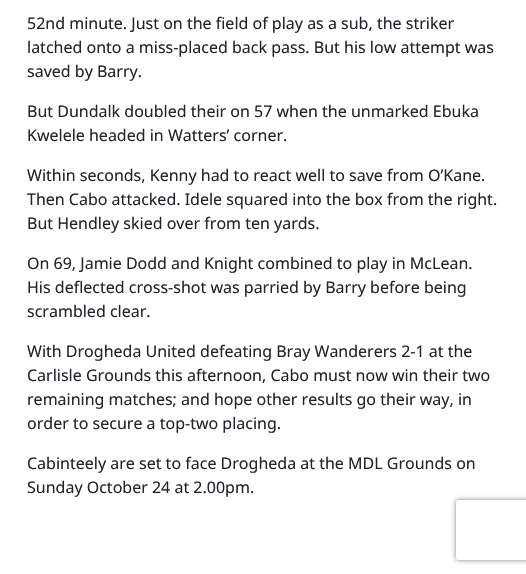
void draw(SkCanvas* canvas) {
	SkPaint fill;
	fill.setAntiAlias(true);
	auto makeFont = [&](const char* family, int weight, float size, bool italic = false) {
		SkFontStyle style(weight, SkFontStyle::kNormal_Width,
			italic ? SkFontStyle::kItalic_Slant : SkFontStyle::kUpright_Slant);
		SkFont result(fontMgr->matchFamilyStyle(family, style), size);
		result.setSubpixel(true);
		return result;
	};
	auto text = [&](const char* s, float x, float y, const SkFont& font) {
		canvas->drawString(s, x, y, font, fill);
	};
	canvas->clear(0xFFFFFFFF);
	canvas->save();
	canvas->clipPath(SkPathBuilder(SkPathFillType::kEvenOdd).moveTo(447, 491).lineTo(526, 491).lineTo(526, 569).lineTo(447, 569).close().moveTo(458, 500).lineTo(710, 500).cubicTo(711, 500, 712, 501, 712, 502).lineTo(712, 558).cubicTo(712, 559, 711, 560, 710, 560).lineTo(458, 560).cubicTo(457, 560, 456, 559, 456, 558).lineTo(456, 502).cubicTo(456, 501, 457, 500, 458, 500).close().detach(), true);
	fill.setColor(0xFF808080);
	fill.setMaskFilter(SkMaskFilter::MakeBlur(kNormal_SkBlurStyle, 2.5f));
	canvas->drawRoundRect(SkRect::MakeLTRB(456, 500, 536, 560), 2, 2, fill);
	fill.setMaskFilter(nullptr);
	canvas->restore();
	auto font1 = makeFont("Noto Sans", 400, 16);
	fill.setColor(0xFF212529);
	text("52nd minute. Just on the field of play as a sub, the striker", 27, 29, font1);
	text("latched onto a miss-placed back pass. But his low attempt was", 27, 53, font1);
	text("saved by Barry.", 27, 77, font1);
	text("But Dundalk doubled their on 57 when the unmarked Ebuka", 27, 117, font1);
	text("Kwelele headed in Watters’ corner.", 27, 141, font1);
	text("Within seconds, Kenny had to react well to save from O’Kane.", 27, 181, font1);
	text("Then Cabo attacked. Idele squared into the box from the right.", 27, 205, font1);
	text("But Hendley skied over from ten yards.", 27, 229, font1);
	text("On 69, Jamie Dodd and Knight combined to play in McLean.", 27, 269, font1);
	text("His deflected cross-shot was parried by Barry before being", 27, 293, font1);
	text("scrambled clear.", 27, 317, font1);
	text("With Drogheda United defeating Bray Wanderers 2-1 at the", 27, 357, font1);
	text("Carlisle Grounds this afternoon, Cabo must now win their two", 27, 381, font1);
	text("remaining matches; and hope other results go their way, in", 27, 405, font1);
	text("order to secure a top-two placing.", 27, 429, font1);
	text("Cabinteely are set to face Drogheda at the MDL Grounds on", 27, 469, font1);
	text("Sunday October 24 at 2.00pm.", 27, 493, font1);
}
